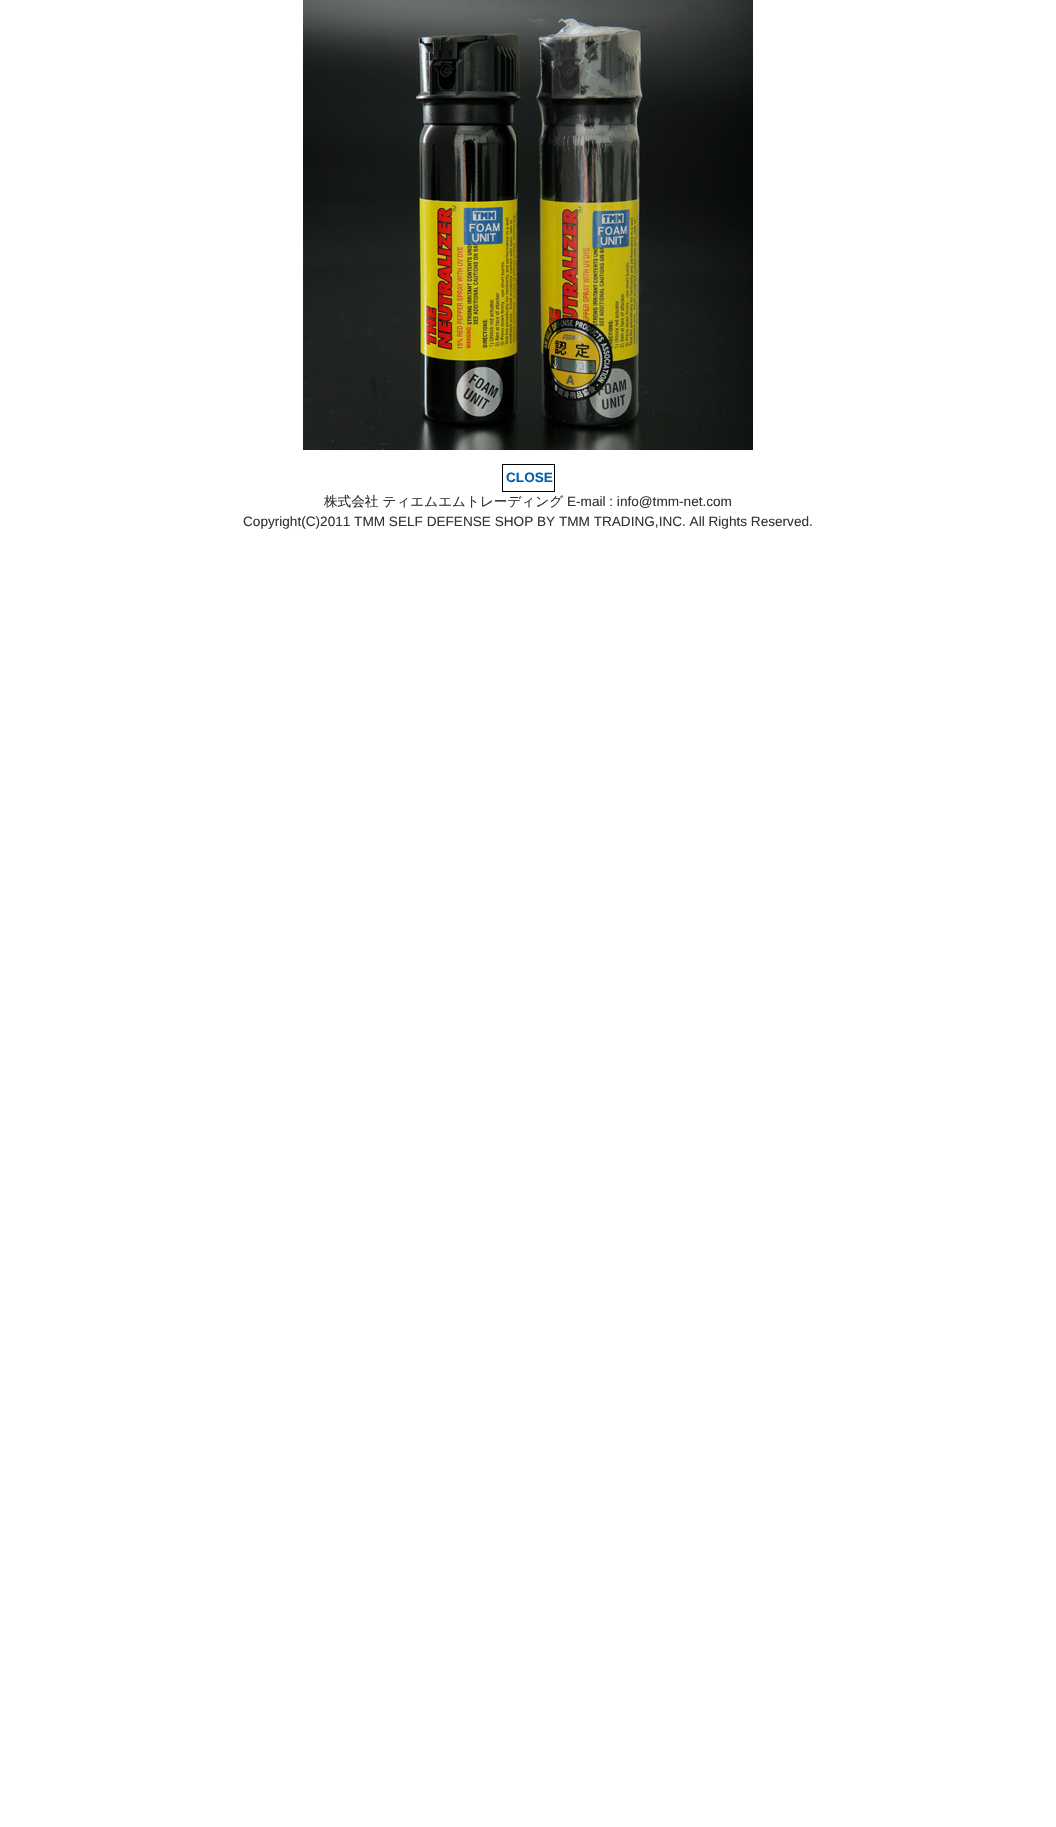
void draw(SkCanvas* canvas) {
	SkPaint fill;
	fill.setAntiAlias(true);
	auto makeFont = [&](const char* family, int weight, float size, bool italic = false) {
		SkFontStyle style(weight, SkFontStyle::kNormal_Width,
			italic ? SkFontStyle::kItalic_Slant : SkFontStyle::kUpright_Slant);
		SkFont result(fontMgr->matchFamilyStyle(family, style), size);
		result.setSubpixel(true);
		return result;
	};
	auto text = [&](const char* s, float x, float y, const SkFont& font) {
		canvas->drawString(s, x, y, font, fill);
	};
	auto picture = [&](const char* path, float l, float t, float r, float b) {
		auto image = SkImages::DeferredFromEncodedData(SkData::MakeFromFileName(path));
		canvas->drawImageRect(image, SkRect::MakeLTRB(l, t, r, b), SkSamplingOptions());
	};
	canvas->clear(0xFFFFFFFF);
	picture("image0.png", 303, 0, 753, 450);
	fill.setStyle(SkPaint::kStroke_Style);
	fill.setStrokeWidth(1);
	fill.setColor(0xFF000000);
	canvas->drawRect(SkRect::MakeLTRB(502.5f, 464.5f, 554.5f, 491.5f), fill);
	auto font1 = makeFont("Liberation Sans", 700, 13.6f);
	fill.setStyle(SkPaint::kFill_Style);
	fill.setColor(0xFF005EAD);
	text("CLOSE", 506, 482, font1);
	auto font2 = makeFont("WenQuanYi Zen Hei", 500, 13.6f);
	fill.setColor(0xFF333333);
	text("株式会社 ティエムエムトレーディング", 324, 506, font2);
	auto font3 = makeFont("Liberation Sans", 400, 13.6f);
	text("E-mail : info@tmm-net.com", 567, 506, font3);
	text("Copyright(C)2011 TMM SELF DEFENSE SHOP BY TMM TRADING,INC. All Rights Reserved.", 243, 526, font3);
}
